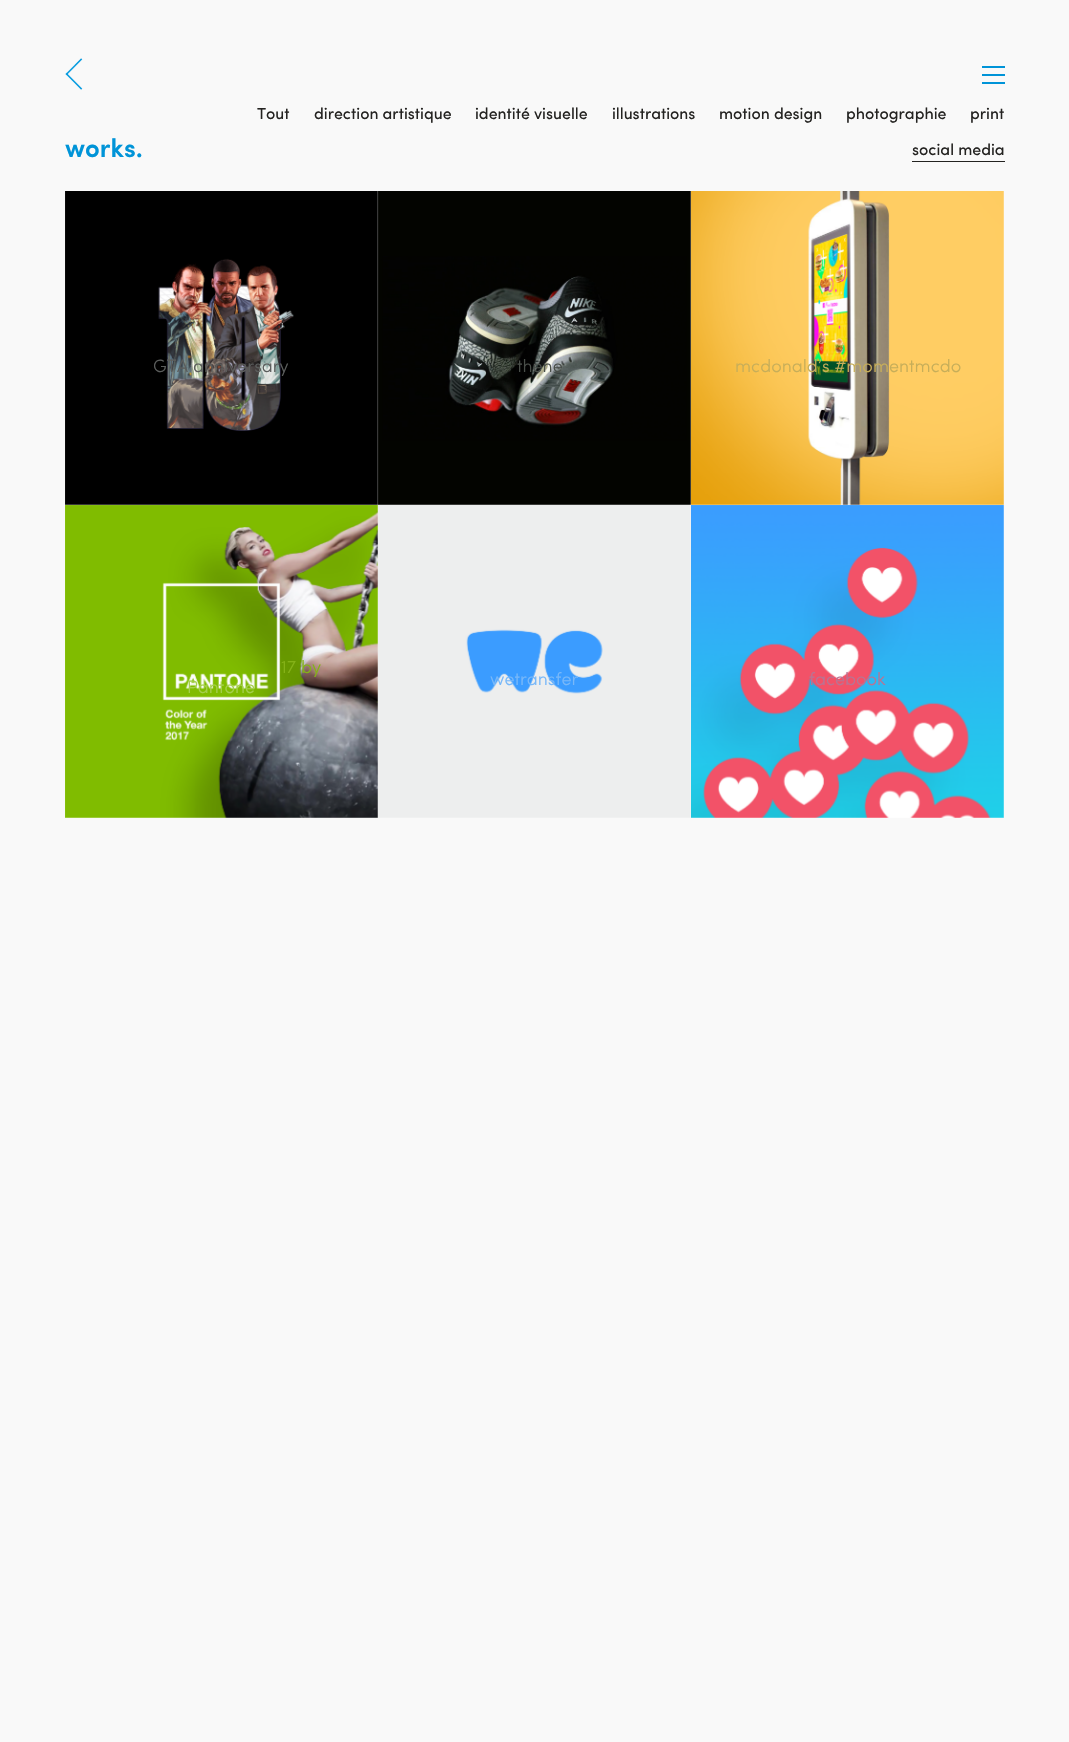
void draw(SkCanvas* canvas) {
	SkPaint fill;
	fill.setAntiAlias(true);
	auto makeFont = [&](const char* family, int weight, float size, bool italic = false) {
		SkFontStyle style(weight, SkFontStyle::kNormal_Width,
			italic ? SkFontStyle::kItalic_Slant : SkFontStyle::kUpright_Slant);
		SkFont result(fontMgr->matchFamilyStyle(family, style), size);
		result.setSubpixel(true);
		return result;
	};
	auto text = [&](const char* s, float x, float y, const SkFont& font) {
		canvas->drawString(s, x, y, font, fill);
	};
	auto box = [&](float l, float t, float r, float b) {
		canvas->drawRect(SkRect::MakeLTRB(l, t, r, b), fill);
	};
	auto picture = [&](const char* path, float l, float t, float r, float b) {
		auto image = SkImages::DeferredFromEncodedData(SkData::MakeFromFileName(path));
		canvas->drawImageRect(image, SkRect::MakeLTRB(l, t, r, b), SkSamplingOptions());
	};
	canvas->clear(0xFFF9F9F9);
	picture("image0.png", 65, 58, 83, 90);
	fill.setColor(0xFF0094D8);
	box(982, 66, 1005, 68);
	box(982, 74, 1005, 76);
	box(982, 82, 1005, 84);
	fill.setColor(0xFF242321);
	box(912, 161, 1005, 162);
	picture("image1.png", 65, 191, 378, 505);
	picture("image2.png", 378, 191, 691, 505);
	picture("image3.png", 691, 191, 1004, 505);
	picture("image4.png", 65, 505, 378, 818);
	picture("image5.png", 378, 505, 691, 818);
	picture("image6.png", 691, 505, 1004, 818);
	auto font1 = makeFont("Sofia", 600, 26);
	fill.setColor(0xFF0094D8);
	text("works.", 65, 157, font1);
	auto font2 = makeFont("Sofia", 400, 16);
	fill.setColor(0xFF242321);
	text("Tout", 257, 119, font2);
	text("direction artistique", 314, 119, font2);
	text("identité visuelle", 475, 119, font2);
	text("illustrations", 612, 119, font2);
	text("motion design", 719, 119, font2);
	text("photographie", 846, 119, font2);
	text("print", 970, 119, font2);
	text("social media", 912, 155, font2);
	auto font3 = makeFont("Sofia", 300, 18);
	fill.setColor(0xFF5B5D5C);
	text("GTA anniversary", 153, 372, font3);
	fill.setColor(0xFF494E49);
	text("thene", 517, 372, font3);
	fill.setColor(0xFFC7AE59);
	text("mcdonald’s #momentmcdo", 735, 372, font3);
	fill.setColor(0xFF84B217);
	text("17 by", 281, 673, font3);
	fill.setColor(0xFFA4CF4B);
	text("Pantone", 187, 693, font3);
	fill.setColor(0xFF78B8F9);
	text("wetransfer", 490, 685, font3);
	fill.setColor(0xFFB87494);
	text("facebook", 809, 685, font3);
}
